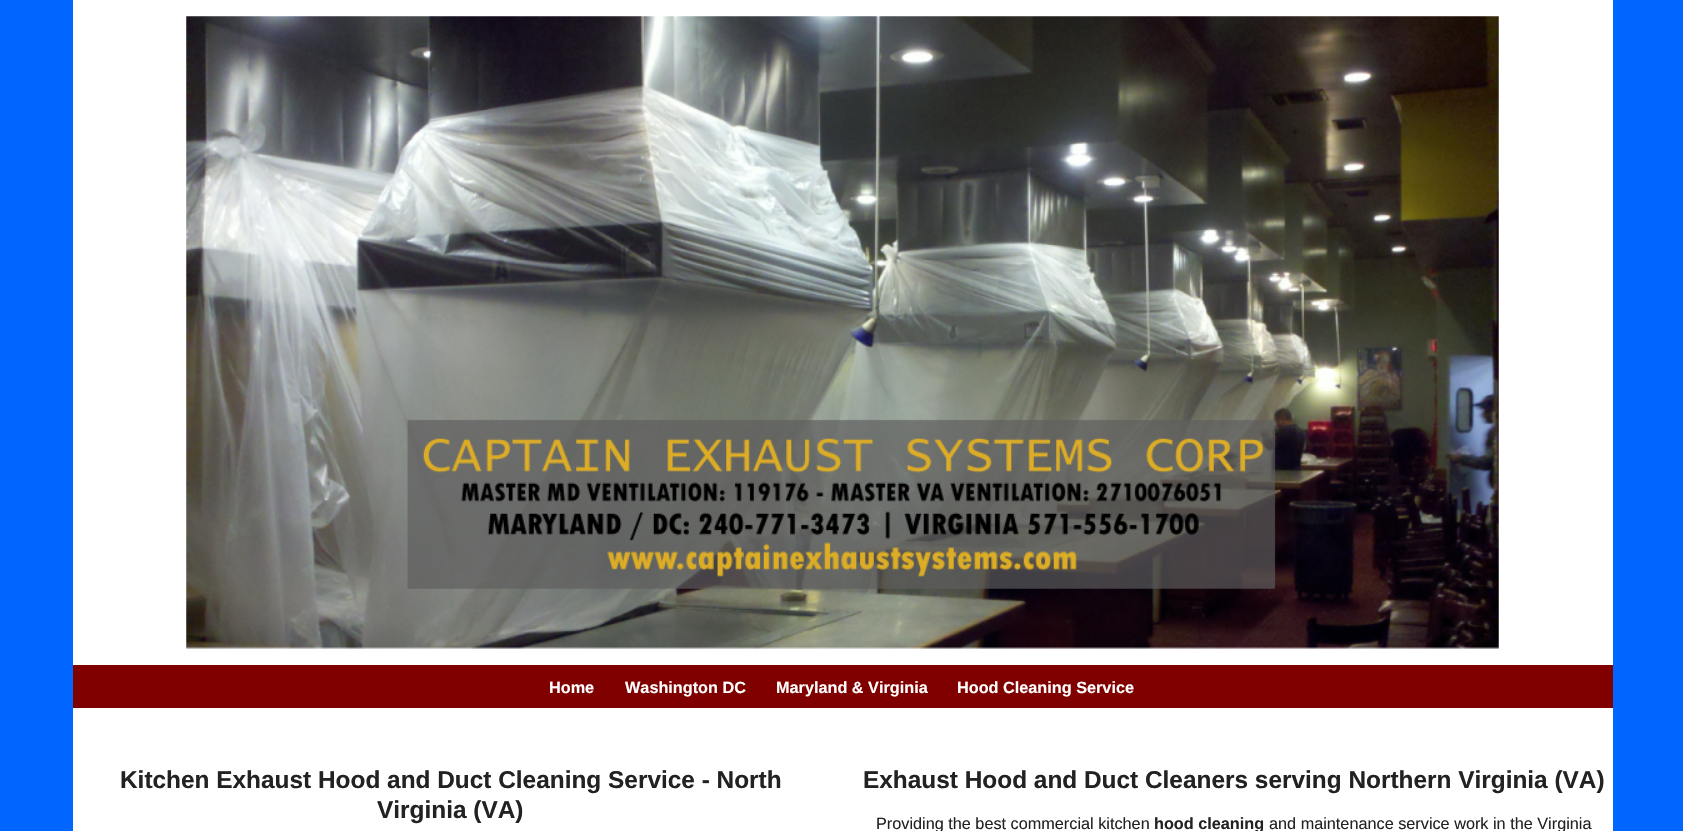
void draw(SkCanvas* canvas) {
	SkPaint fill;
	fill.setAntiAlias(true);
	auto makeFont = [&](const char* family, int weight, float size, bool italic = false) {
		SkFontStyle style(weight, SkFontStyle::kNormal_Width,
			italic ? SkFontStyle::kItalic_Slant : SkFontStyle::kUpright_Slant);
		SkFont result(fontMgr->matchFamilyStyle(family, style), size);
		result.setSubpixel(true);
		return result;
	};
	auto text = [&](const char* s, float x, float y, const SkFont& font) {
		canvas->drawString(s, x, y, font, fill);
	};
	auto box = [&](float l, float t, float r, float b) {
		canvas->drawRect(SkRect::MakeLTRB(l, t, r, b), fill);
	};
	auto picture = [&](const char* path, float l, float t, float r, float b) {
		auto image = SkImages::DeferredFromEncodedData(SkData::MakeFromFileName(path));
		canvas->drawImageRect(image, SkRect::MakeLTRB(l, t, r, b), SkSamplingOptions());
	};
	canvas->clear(0xFF0066FF);
	fill.setColor(0xFFFFFFFF);
	box(73, 0, 1613, 831);
	picture("image0.png", 186, 16, 1499, 649);
	fill.setColor(0xFF800000);
	box(73, 665, 1613, 708);
	auto font1 = makeFont("Liberation Sans", 700, 16.25f);
	fill.setColor(0xFFFFFFFF);
	text("Home", 549, 693, font1);
	text("Washington DC", 625, 693, font1);
	text("Maryland & Virginia", 776, 693, font1);
	text("Hood Cleaning Service", 957, 693, font1);
	auto font2 = makeFont("Liberation Sans", 700, 24.4f);
	fill.setColor(0xFF222222);
	text("Kitchen Exhaust Hood and Duct Cleaning Service - North", 120, 788, font2);
	text("Virginia (VA)", 377, 818, font2);
	text("Exhaust Hood and Duct Cleaners serving Northern Virginia (VA)", 863, 788, font2);
	auto font3 = makeFont("Liberation Sans", 400, 16.25f);
	text("Providing the best commercial kitchen", 876, 829, font3);
	text("hood cleaning", 1154, 829, font1);
	text("and maintenance service work in the Virginia", 1269, 829, font3);
}
